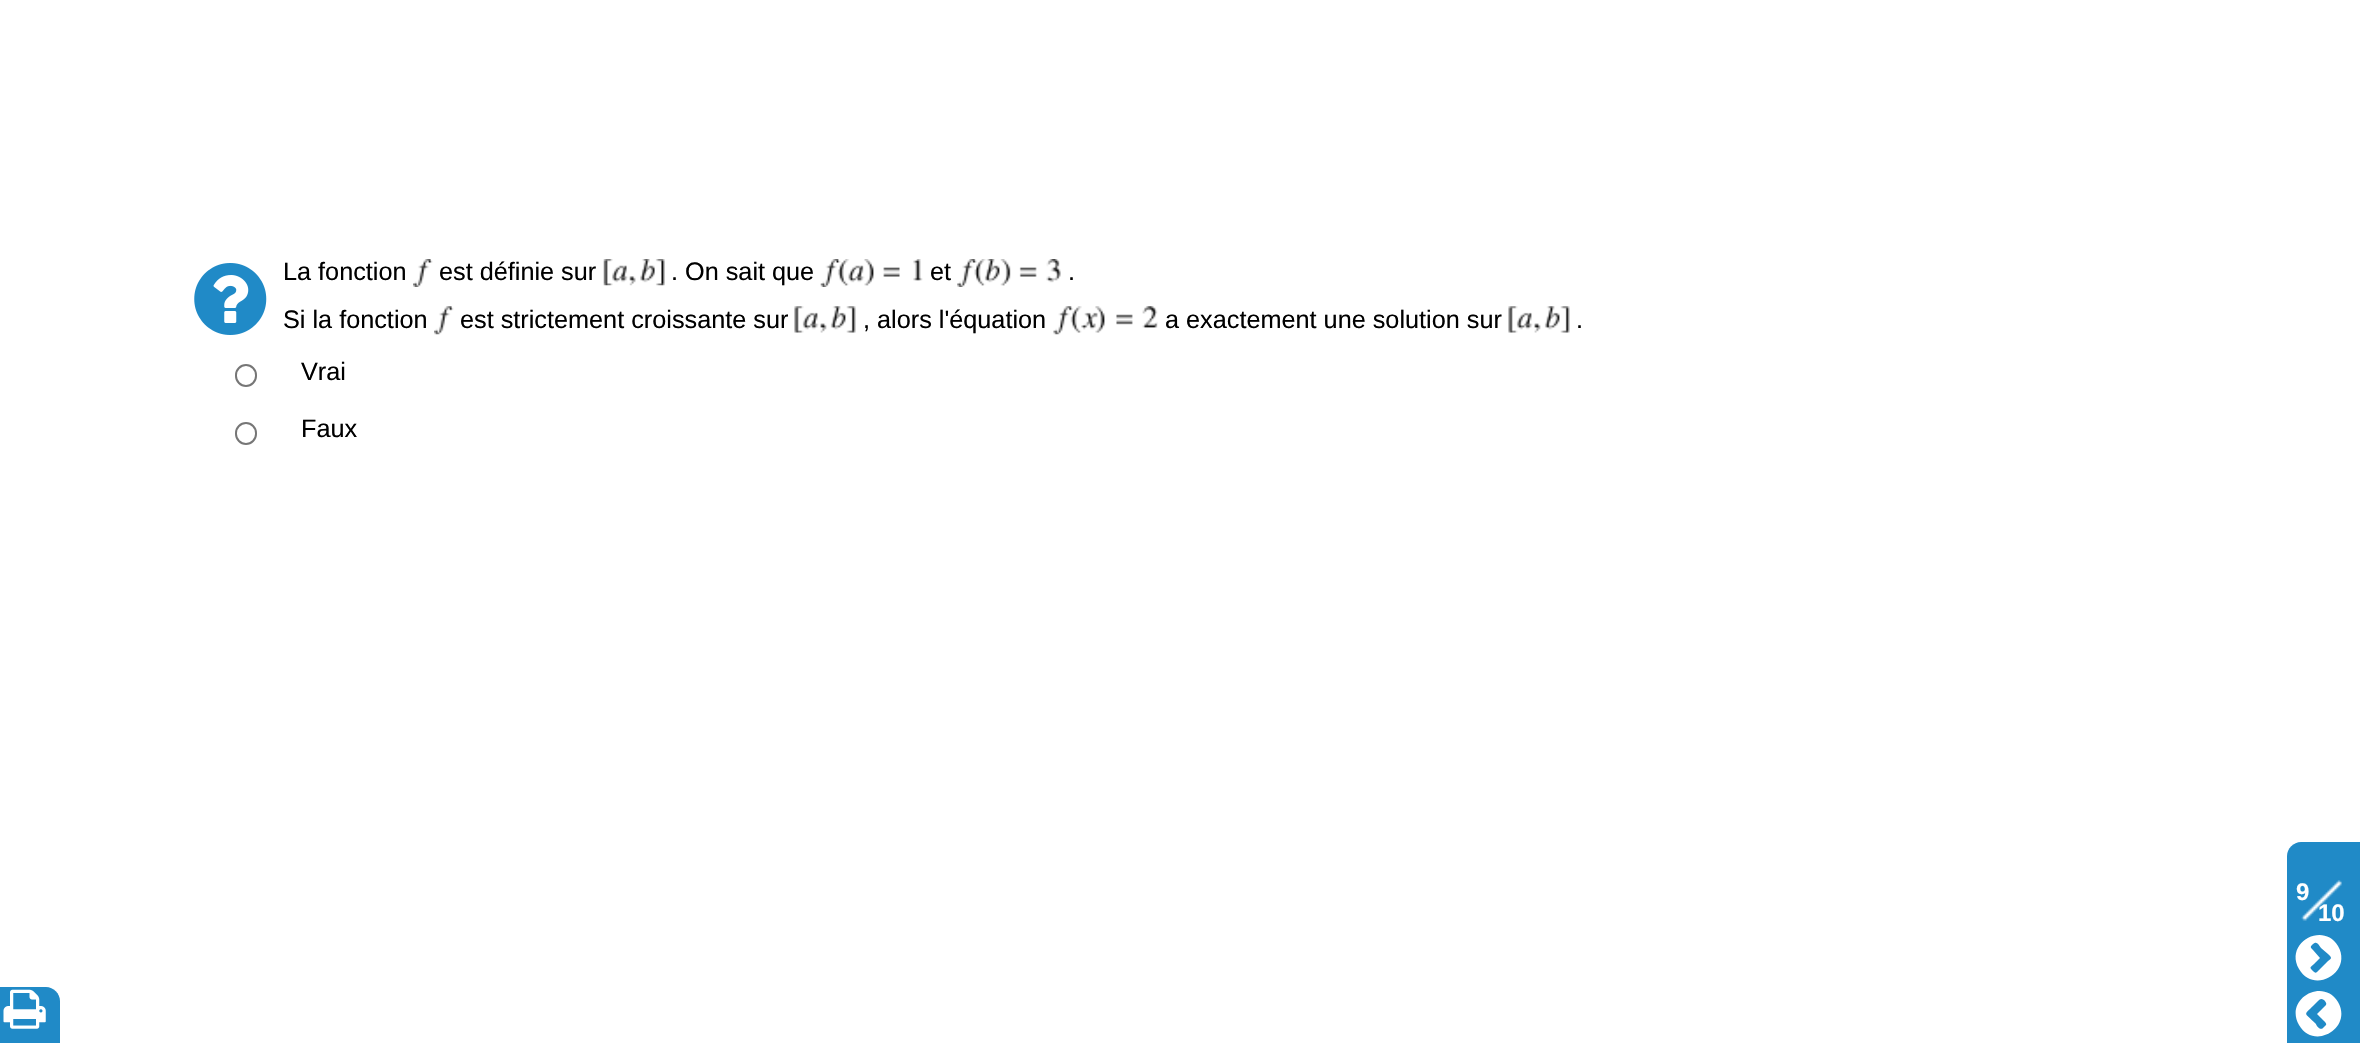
void draw(SkCanvas* canvas) {
	SkPaint fill;
	fill.setAntiAlias(true);
	auto makeFont = [&](const char* family, int weight, float size, bool italic = false) {
		SkFontStyle style(weight, SkFontStyle::kNormal_Width,
			italic ? SkFontStyle::kItalic_Slant : SkFontStyle::kUpright_Slant);
		SkFont result(fontMgr->matchFamilyStyle(family, style), size);
		result.setSubpixel(true);
		return result;
	};
	auto text = [&](const char* s, float x, float y, const SkFont& font) {
		canvas->drawString(s, x, y, font, fill);
	};
	auto picture = [&](const char* path, float l, float t, float r, float b) {
		auto image = SkImages::DeferredFromEncodedData(SkData::MakeFromFileName(path));
		canvas->drawImageRect(image, SkRect::MakeLTRB(l, t, r, b), SkSamplingOptions());
	};
	canvas->clear(0xFFFFFFFF);
	picture("image0.png", 194, 263, 267, 335);
	picture("image1.png", 413, 259, 433, 287);
	picture("image2.png", 603, 259, 665, 286);
	picture("image3.png", 820, 259, 923, 287);
	picture("image4.png", 957, 259, 1061, 287);
	picture("image5.png", 434, 306, 454, 335);
	picture("image6.png", 794, 306, 856, 333);
	picture("image7.png", 1053, 306, 1158, 335);
	picture("image8.png", 1508, 306, 1570, 333);
	fill.setStyle(SkPaint::kStroke_Style);
	fill.setStrokeWidth(2);
	fill.setColor(0xFF767676);
	canvas->drawRoundRect(SkRect::MakeLTRB(236, 365, 256, 386), 10, 10, fill);
	canvas->drawRoundRect(SkRect::MakeLTRB(236, 423, 256, 444), 10, 10, fill);
	fill.setStyle(SkPaint::kFill_Style);
	fill.setColor(0xFF208AC7);
	canvas->drawPath(SkPathBuilder().moveTo(2301, 842).lineTo(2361, 842).lineTo(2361, 1043).lineTo(2287, 1043).lineTo(2287, 856).cubicTo(2287, 848.5f, 2293.5f, 842, 2301, 842).close().detach(), fill);
	picture("image9.png", 2301, 880, 2342, 921);
	fill.setColor(0xFFFFFFFF);
	canvas->drawPath(SkPathBuilder().moveTo(2317, 972).lineTo(2328, 961).cubicTo(2332, 958, 2332, 958, 2328, 954).lineTo(2321, 948).cubicTo(2318, 944, 2317, 941, 2313, 944).cubicTo(2310, 947, 2310, 947, 2313, 950).lineTo(2320, 958).lineTo(2314, 964).cubicTo(2311, 967, 2309, 967, 2312, 970).cubicTo(2313, 971, 2315, 974, 2317, 972).close().moveTo(2338, 946).cubicTo(2353, 972, 2314, 995, 2299, 969).cubicTo(2284, 943, 2323, 921, 2338, 946).close().detach(), fill);
	canvas->drawPath(SkPathBuilder().moveTo(2323, 1028).cubicTo(2326, 1025, 2328, 1025, 2324, 1021).lineTo(2317, 1014).lineTo(2326, 1005).cubicTo(2327, 1003, 2325, 1001, 2324, 1000).cubicTo(2321, 998, 2320, 999, 2318, 1001).lineTo(2313, 1006).cubicTo(2303, 1016, 2304, 1012, 2316, 1024).cubicTo(2316, 1025, 2320, 1031, 2323, 1028).close().moveTo(2338, 1002).cubicTo(2353, 1028, 2314, 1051, 2299, 1025).cubicTo(2284, 999, 2323, 977, 2338, 1002).close().detach(), fill);
	fill.setColor(0xFF208AC7);
	canvas->drawPath(SkPathBuilder().moveTo(0, 987).lineTo(46, 987).cubicTo(53.5f, 987, 60, 993.5f, 60, 1001).lineTo(60, 1043).lineTo(0, 1043).close().detach(), fill);
	picture("image10.png", 3, 989, 46, 1029);
	auto font1 = makeFont("Liberation Sans", 400, 25.25f);
	fill.setColor(0xFF000000);
	text("La fonction", 283, 280, font1);
	text("est définie sur", 439, 280, font1);
	text(". On sait que", 671, 280, font1);
	text("et", 930, 280, font1);
	text(".", 1068, 280, font1);
	text("Si la fonction", 283, 328, font1);
	text("est strictement croissante sur", 460, 328, font1);
	text(", alors l'équation", 863, 328, font1);
	text("a exactement une solution sur", 1165, 328, font1);
	text(".", 1576, 328, font1);
	text("Vrai", 301, 380, font1);
	text("Faux", 301, 437, font1);
	auto font2 = makeFont("Liberation Sans", 700, 24);
	fill.setColor(0xFFFFFFFF);
	text("9", 2296, 900, font2);
	text("10", 2318, 921, font2);
}
